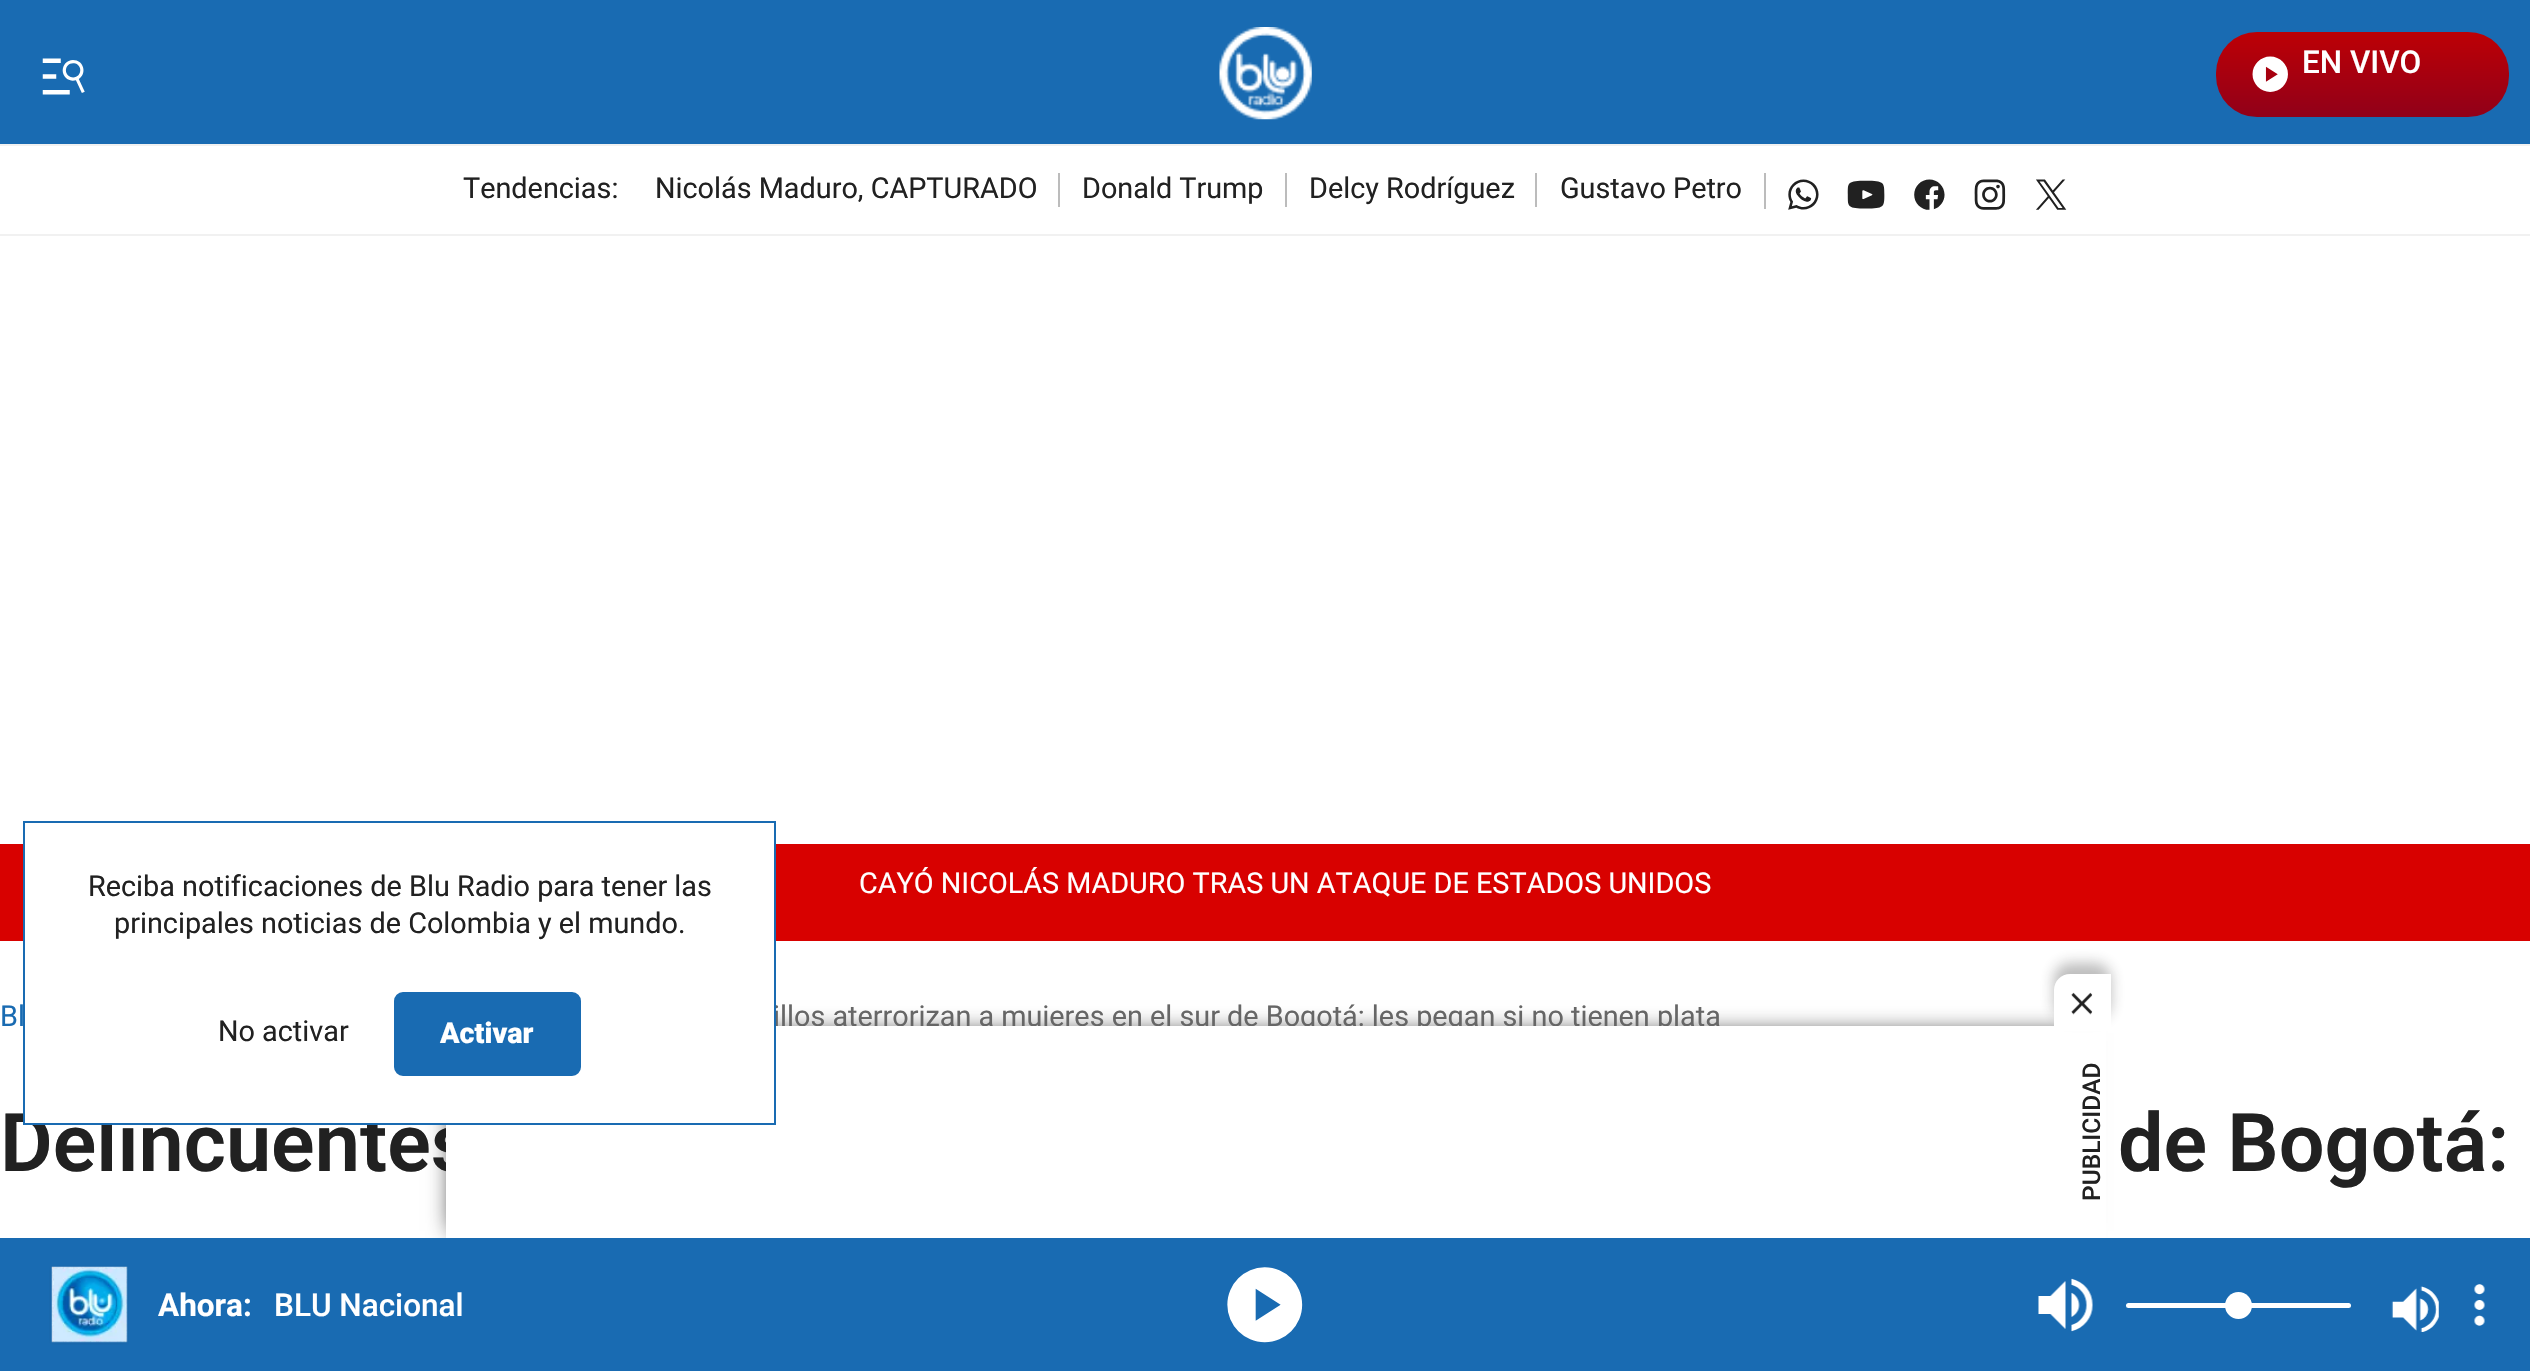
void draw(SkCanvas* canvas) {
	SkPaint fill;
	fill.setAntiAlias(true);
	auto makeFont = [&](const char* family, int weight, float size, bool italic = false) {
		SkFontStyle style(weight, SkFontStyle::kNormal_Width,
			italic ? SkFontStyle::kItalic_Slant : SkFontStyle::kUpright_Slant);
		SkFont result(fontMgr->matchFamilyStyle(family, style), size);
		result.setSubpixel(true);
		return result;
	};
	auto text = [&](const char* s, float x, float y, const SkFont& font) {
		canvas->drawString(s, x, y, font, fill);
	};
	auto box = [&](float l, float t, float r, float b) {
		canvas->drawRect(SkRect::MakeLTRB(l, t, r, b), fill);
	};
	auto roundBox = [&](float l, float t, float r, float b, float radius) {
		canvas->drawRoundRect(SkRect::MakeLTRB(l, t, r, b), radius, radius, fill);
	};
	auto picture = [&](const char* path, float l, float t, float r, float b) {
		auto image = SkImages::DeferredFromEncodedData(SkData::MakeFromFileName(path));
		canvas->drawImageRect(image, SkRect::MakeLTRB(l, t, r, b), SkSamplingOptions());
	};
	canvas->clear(0xFFFFFFFF);
	fill.setColor(0xFF196BB2);
	box(0, 0, 2530, 144);
	fill.setColor(0xFFF1F1F1);
	box(0, 144, 2530, 146);
	picture("image0.png", 42, 58, 85, 95);
	picture("image1.png", 1219, 27, 1312, 120);
	{
		const SkColor colors[] = {0xFFBD0005, 0xFF910019};
		const float stops[] = {0, 1};
		const SkPoint ends[] = {{2363, 31}, {2363, 117}};
		fill.setShader(SkGradientShader::MakeLinear(ends, colors, stops, 2, SkTileMode::kClamp));
		fill.setAlpha(255);
	}
	roundBox(2216, 32, 2509, 117, 41);
	picture("image2.png", 2252, 56, 2288, 92);
	fill.setShader(nullptr);
	fill.setColor(0xFFF1F1F1);
	box(0, 234, 2530, 236);
	fill.setColor(0xFFBCBCBC);
	box(1058, 173, 1060, 207);
	box(1285, 173, 1287, 207);
	box(1535, 173, 1537, 207);
	box(1764, 173, 1766, 209);
	picture("image3.png", 1788, 179, 1819, 210);
	picture("image4.png", 1847, 180, 1885, 209);
	picture("image5.png", 1914, 179, 1945, 210);
	picture("image6.png", 1974, 179, 2006, 210);
	picture("image7.png", 2036, 179, 2067, 210);
	fill.setColor(0xFFD80100);
	box(0, 844, 2530, 941);
	fill.setColor(0xFF212121);
	fill.setMaskFilter(SkMaskFilter::MakeBlur(kNormal_SkBlurStyle, 11));
	canvas->drawRect(SkRect::MakeLTRB(452, 1033, 2081, 1231), fill);
	fill.setMaskFilter(nullptr);
	fill.setColor(0xFFFFFFFF);
	box(2081, 1031, 2106, 1238);
	fill.setColor(0xFF196BB2);
	box(0, 1238, 2530, 1371);
	picture("image9.png", 49, 1265, 129, 1345);
	picture("image10.png", 1227, 1267, 1303, 1343);
	picture("image11.png", 2038, 1278, 2093, 1332);
	fill.setColor(0xFFFFFFFF);
	roundBox(2126, 1303, 2351, 1308, 2.5f);
	canvas->drawCircle(2238.5f, 1305.5f, 13.5f, fill);
	picture("image12.png", 2391, 1286, 2439, 1332);
	picture("image13.png", 2474, 1284, 2485, 1326);
	auto font1 = makeFont("Roboto", 500, 31.5f);
	text("EN VIVO", 2302, 73, font1);
	auto font2 = makeFont("Roboto", 400, 28.8f);
	fill.setColor(0xFF212121);
	text("Tendencias:", 463, 198, font2);
	text("Nicolás Maduro, CAPTURADO", 655, 198, font2);
	text("Donald Trump", 1082, 198, font2);
	text("Delcy Rodríguez", 1309, 198, font2);
	text("Gustavo Petro", 1560, 198, font2);
	fill.setColor(0xFFFFFFFF);
	text("CAYÓ NICOLÁS MADURO TRAS UN ATAQUE DE ESTADOS UNIDOS", 859, 893, font2);
	fill.setColor(0xFF196BB2);
	text("Bl", 0, 1026, font2);
	fill.setColor(0xFF666666);
	text("illos aterrorizan a mujeres en el sur de Bogotá: les pegan si no tienen plata", 773, 1026, font2);
	auto font3 = makeFont("Roboto", 600, 81);
	fill.setColor(0xFF212121);
	text("Delincuentes", 0, 1171, font3);
	text("de Bogotá:", 2118, 1171, font3);
	fill.setColor(0xFFFFFFFF);
	box(446, 1026, 2081, 1238);
	box(25, 844, 774, 1123);
	fill.setStyle(SkPaint::kStroke_Style);
	fill.setStrokeWidth(2);
	fill.setColor(0xFF196BB2);
	canvas->drawRect(SkRect::MakeLTRB(24, 822, 775, 1124), fill);
	fill.setStyle(SkPaint::kFill_Style);
	canvas->drawRoundRect(SkRect::MakeLTRB(395, 993, 580, 1075), 8, 8, fill);
	fill.setStyle(SkPaint::kStroke_Style);
	canvas->drawRoundRect(SkRect::MakeLTRB(395, 993, 580, 1075), 8, 8, fill);
	auto font4 = makeFont("Roboto", 900, 28.8f);
	fill.setStyle(SkPaint::kFill_Style);
	fill.setColor(0xFFFFFFFF);
	text("Activar", 440, 1043, font4);
	fill.setColor(0xFF212121);
	text("No activar", 218, 1041, font2);
	text("principales noticias de Colombia y el mundo.", 114, 933, font2);
	text("Reciba notificaciones de Blu Radio para tener las", 88, 896, font2);
	fill.setColor(0x4D212121);
	fill.setMaskFilter(SkMaskFilter::MakeBlur(kNormal_SkBlurStyle, 7));
	canvas->drawRoundRect(SkRect::MakeLTRB(2054, 963, 2111, 1019), 16, 16, fill);
	fill.setMaskFilter(nullptr);
	fill.setColor(0xFFFFFFFF);
	canvas->drawPath(SkPathBuilder().moveTo(2070, 974).lineTo(2111, 974).lineTo(2111, 1031).lineTo(2054, 1031).lineTo(2054, 990).cubicTo(2054, 981, 2061, 974, 2070, 974).close().detach(), fill);
	picture("image8.png", 2071, 992, 2093, 1015);
	auto font5 = makeFont("Roboto", 500, 24.5f);
	fill.setColor(0xFF212121);
	canvas->save();
	canvas->rotate(-90, 2100, 1201);
	text("PUBLICIDAD", 2100, 1201, font5);
	canvas->restore();
	auto font6 = makeFont("Roboto", 700, 31.5f);
	fill.setColor(0xFFFFFFFF);
	text("Ahora:", 158, 1316, font6);
	text("BLU Nacional", 274, 1316, font1);
}
